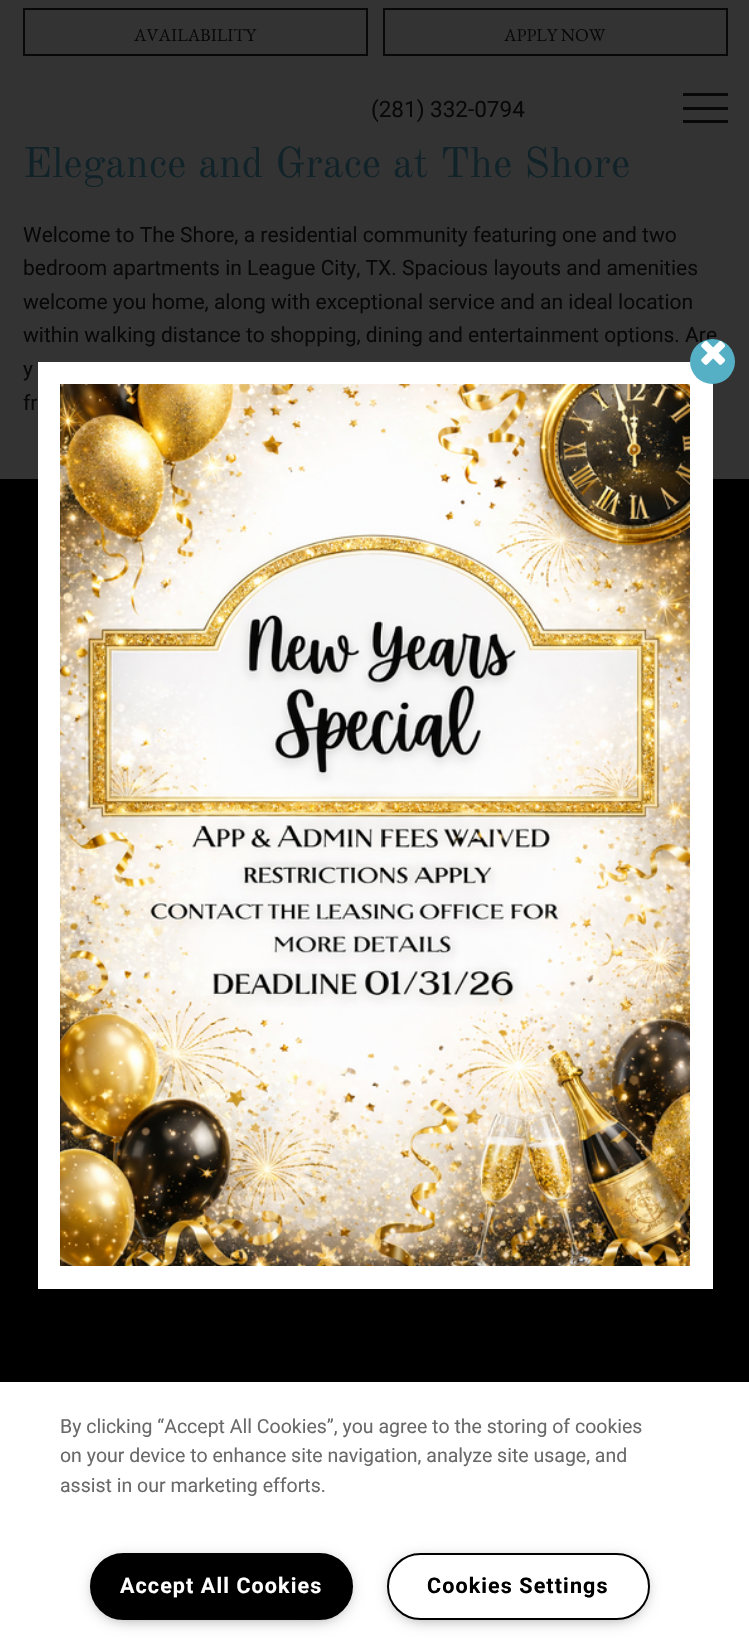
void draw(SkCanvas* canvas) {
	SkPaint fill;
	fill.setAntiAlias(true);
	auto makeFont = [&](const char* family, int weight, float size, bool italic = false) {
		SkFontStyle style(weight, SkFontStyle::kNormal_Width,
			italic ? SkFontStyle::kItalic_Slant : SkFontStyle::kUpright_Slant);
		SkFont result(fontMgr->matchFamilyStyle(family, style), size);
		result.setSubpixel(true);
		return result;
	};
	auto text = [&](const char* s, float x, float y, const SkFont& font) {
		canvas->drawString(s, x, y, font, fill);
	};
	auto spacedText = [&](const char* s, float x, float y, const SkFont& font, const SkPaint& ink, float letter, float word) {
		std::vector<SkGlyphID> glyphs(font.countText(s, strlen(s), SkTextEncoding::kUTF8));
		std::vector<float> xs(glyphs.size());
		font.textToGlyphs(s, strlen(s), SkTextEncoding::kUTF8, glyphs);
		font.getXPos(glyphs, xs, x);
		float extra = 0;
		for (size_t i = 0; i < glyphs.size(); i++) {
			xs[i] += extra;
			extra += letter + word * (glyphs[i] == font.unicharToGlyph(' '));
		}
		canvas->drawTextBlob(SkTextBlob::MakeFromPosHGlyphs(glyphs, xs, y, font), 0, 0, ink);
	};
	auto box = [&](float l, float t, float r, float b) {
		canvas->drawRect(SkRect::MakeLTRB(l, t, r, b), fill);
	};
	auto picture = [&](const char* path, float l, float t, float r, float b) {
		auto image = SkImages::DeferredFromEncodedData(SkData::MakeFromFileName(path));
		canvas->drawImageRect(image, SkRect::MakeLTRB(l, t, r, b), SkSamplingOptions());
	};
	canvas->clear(0xFF333333);
	fill.setStyle(SkPaint::kStroke_Style);
	fill.setStrokeWidth(2);
	fill.setColor(0xFF080808);
	canvas->drawRect(SkRect::MakeLTRB(24, 9, 367, 55), fill);
	canvas->drawRect(SkRect::MakeLTRB(384, 9, 727, 55), fill);
	fill.setStyle(SkPaint::kFill_Style);
	fill.setColor(0xFF000000);
	box(0, 479, 749, 1382);
	fill.setColor(0xFFFFFFFF);
	box(38, 362, 713, 1289);
	picture("image1.png", 60, 384, 690, 1266);
	fill.setColor(0xFF080808);
	box(683, 93, 728, 96);
	box(683, 107, 728, 110);
	box(683, 120, 728, 123);
	fill.setColor(0xFFFFFFFF);
	box(0, 1382, 749, 1650);
	fill.setColor(0xFF999999);
	fill.setMaskFilter(SkMaskFilter::MakeBlur(kNormal_SkBlurStyle, 7.5f));
	canvas->drawRoundRect(SkRect::MakeLTRB(95, 1560, 348, 1619), 29.5f, 29.5f, fill);
	fill.setMaskFilter(nullptr);
	fill.setColor(0xFF000000);
	canvas->drawRoundRect(SkRect::MakeLTRB(91, 1554, 352, 1619), 32.5f, 32.5f, fill);
	fill.setStyle(SkPaint::kStroke_Style);
	canvas->drawRoundRect(SkRect::MakeLTRB(91, 1554, 352, 1619), 32.5f, 32.5f, fill);
	fill.setStyle(SkPaint::kFill_Style);
	fill.setColor(0xFF999999);
	fill.setMaskFilter(SkMaskFilter::MakeBlur(kNormal_SkBlurStyle, 7.5f));
	canvas->drawRoundRect(SkRect::MakeLTRB(392, 1560, 645, 1619), 29.5f, 29.5f, fill);
	fill.setMaskFilter(nullptr);
	fill.setColor(0xFFFFFFFF);
	canvas->drawRoundRect(SkRect::MakeLTRB(388, 1554, 649, 1619), 32.5f, 32.5f, fill);
	fill.setStyle(SkPaint::kStroke_Style);
	fill.setColor(0xFF000000);
	canvas->drawRoundRect(SkRect::MakeLTRB(388, 1554, 649, 1619), 32.5f, 32.5f, fill);
	auto font1 = makeFont("EB Garamond", 400, 18);
	fill.setStyle(SkPaint::kFill_Style);
	fill.setColor(0xFF080808);
	text("AVAILABILITY", 134, 41, font1);
	text("APPLY NOW", 504, 41, font1);
	auto font2 = makeFont("Old Standard TT", 400, 42);
	fill.setColor(0xFF112328);
	text("Elegance and Grace at The Shore", 23, 177, font2);
	auto font3 = makeFont("Roboto", 400, 21);
	fill.setColor(0xFF080808);
	text("Welcome to The Shore, a residential community featuring one and two", 23, 242, font3);
	text("bedroom apartments in League City, TX. Spacious layouts and amenities", 23, 275, font3);
	text("welcome you home, along with exceptional service and an ideal location", 23, 309, font3);
	text("within walking distance to shopping, dining and entertainment options. Are", 23, 342, font3);
	text("y", 23, 376, font3);
	text("fr", 23, 410, font3);
	fill.setColor(0xFF55B0C6);
	canvas->drawCircle(712.5f, 361.5f, 22.5f, fill);
	picture("image0.png", 701, 341, 726, 365);
	auto font4 = makeFont("Roboto", 400, 22.5f);
	fill.setColor(0xFF080808);
	text("(281) 332-0794", 371, 117, font4);
	auto font5 = makeFont("Roboto", 400, 19.5f);
	fill.setColor(0xFF696969);
	text("By clicking “Accept All Cookies”, you agree to the storing of cookies", 60, 1433, font5);
	text("on your device to enhance site navigation, analyze site usage, and", 60, 1462, font5);
	text("assist in our marketing efforts.", 60, 1492, font5);
	auto font6 = makeFont("Roboto", 700, 21.5f);
	fill.setColor(0xFFFFFFFF);
	spacedText("Accept All Cookies", 120, 1593, font6, fill, 1.1f, 0);
	fill.setColor(0xFF000000);
	spacedText("Cookies Settings", 427, 1593, font6, fill, 1.1f, 0);
}
